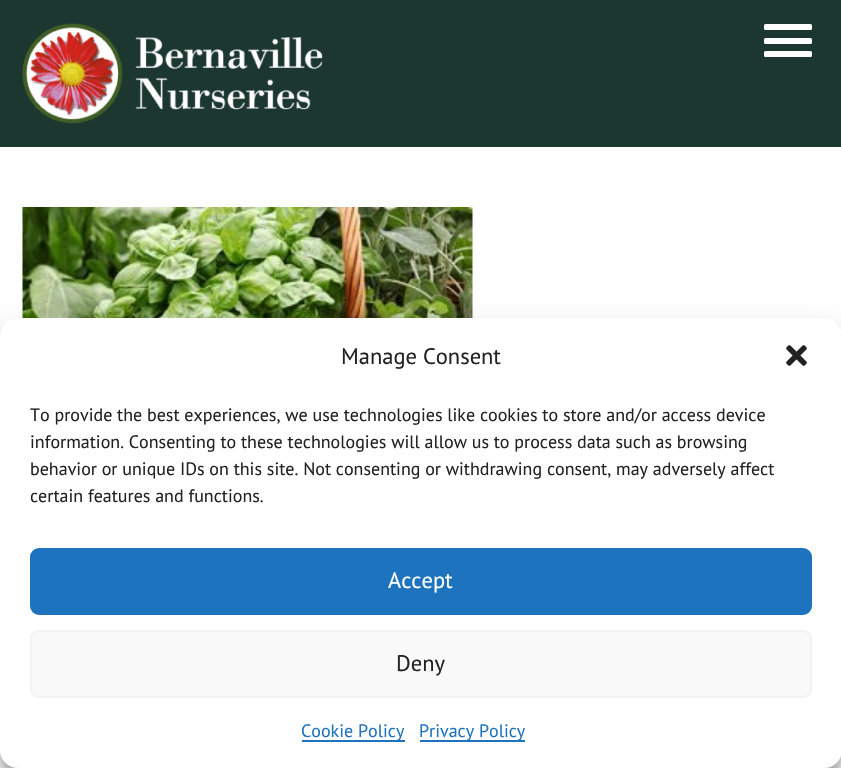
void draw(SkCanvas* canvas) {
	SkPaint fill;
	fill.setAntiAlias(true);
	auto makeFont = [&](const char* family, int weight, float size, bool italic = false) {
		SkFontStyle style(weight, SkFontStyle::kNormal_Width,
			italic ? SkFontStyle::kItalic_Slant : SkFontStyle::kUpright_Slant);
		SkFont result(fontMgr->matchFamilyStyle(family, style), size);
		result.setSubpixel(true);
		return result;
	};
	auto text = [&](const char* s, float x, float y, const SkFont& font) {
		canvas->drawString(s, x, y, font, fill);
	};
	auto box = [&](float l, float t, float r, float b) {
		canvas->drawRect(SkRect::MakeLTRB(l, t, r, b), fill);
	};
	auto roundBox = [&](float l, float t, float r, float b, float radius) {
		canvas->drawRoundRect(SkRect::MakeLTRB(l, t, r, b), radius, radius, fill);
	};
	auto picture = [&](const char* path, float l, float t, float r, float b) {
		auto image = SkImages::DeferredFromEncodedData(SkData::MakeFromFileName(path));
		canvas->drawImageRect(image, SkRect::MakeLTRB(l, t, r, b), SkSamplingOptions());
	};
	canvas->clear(0xFFFFFFFF);
	fill.setColor(0xFF1C3730);
	box(0, 0, 841, 147);
	picture("image0.png", 22, 23, 323, 124);
	fill.setColor(0xFFFFFFFF);
	roundBox(764, 24, 812, 30, 1.5f);
	roundBox(764, 38, 812, 44, 1.5f);
	roundBox(764, 51, 812, 57, 1.5f);
	picture("image1.png", 22, 207, 473, 318);
	fill.setColor(0x3B000000);
	fill.setMaskFilter(SkMaskFilter::MakeBlur(kNormal_SkBlurStyle, 4.5f));
	canvas->drawRoundRect(SkRect::MakeLTRB(0, 327, 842, 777), 18, 18, fill);
	fill.setMaskFilter(nullptr);
	fill.setColor(0x30000000);
	fill.setMaskFilter(SkMaskFilter::MakeBlur(kNormal_SkBlurStyle, 15));
	canvas->drawRoundRect(SkRect::MakeLTRB(0, 333, 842, 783), 18, 18, fill);
	fill.setMaskFilter(nullptr);
	fill.setColor(0xFFFFFFFF);
	roundBox(0, 318, 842, 768, 18);
	picture("image2.png", 786, 345, 807, 366);
	fill.setColor(0xFF1E73BE);
	canvas->drawRoundRect(SkRect::MakeLTRB(31, 549, 811, 614), 8, 8, fill);
	fill.setStyle(SkPaint::kStroke_Style);
	fill.setStrokeWidth(2);
	canvas->drawRoundRect(SkRect::MakeLTRB(31, 549, 811, 614), 8, 8, fill);
	fill.setStyle(SkPaint::kFill_Style);
	fill.setColor(0xFFF9F9F9);
	canvas->drawRoundRect(SkRect::MakeLTRB(31, 631, 811, 697), 8, 8, fill);
	fill.setStyle(SkPaint::kStroke_Style);
	fill.setColor(0xFFF2F2F2);
	canvas->drawRoundRect(SkRect::MakeLTRB(31, 631, 811, 697), 8, 8, fill);
	fill.setStyle(SkPaint::kFill_Style);
	fill.setColor(0xFF1E73BE);
	box(302, 740, 405, 742);
	box(420, 740, 525, 742);
	auto font1 = makeFont("PT Sans", 400, 22.5f);
	fill.setColor(0xFF222222);
	text("Manage Consent", 341, 364, font1);
	auto font2 = makeFont("PT Sans", 400, 18);
	text("To provide the best experiences, we use technologies like cookies to store and/or access device", 30, 421, font2);
	text("information. Consenting to these technologies will allow us to process data such as browsing", 30, 448, font2);
	text("behavior or unique IDs on this site. Not consenting or withdrawing consent, may adversely affect", 30, 475, font2);
	text("certain features and functions.", 30, 502, font2);
	fill.setColor(0xFFFFFFFF);
	text("Accept", 388, 588, font1);
	fill.setColor(0xFF222222);
	text("Deny", 396, 671, font1);
	fill.setColor(0xFF1E73BE);
	text("Cookie Policy", 301, 737, font2);
	text("Privacy Policy", 419, 737, font2);
}
